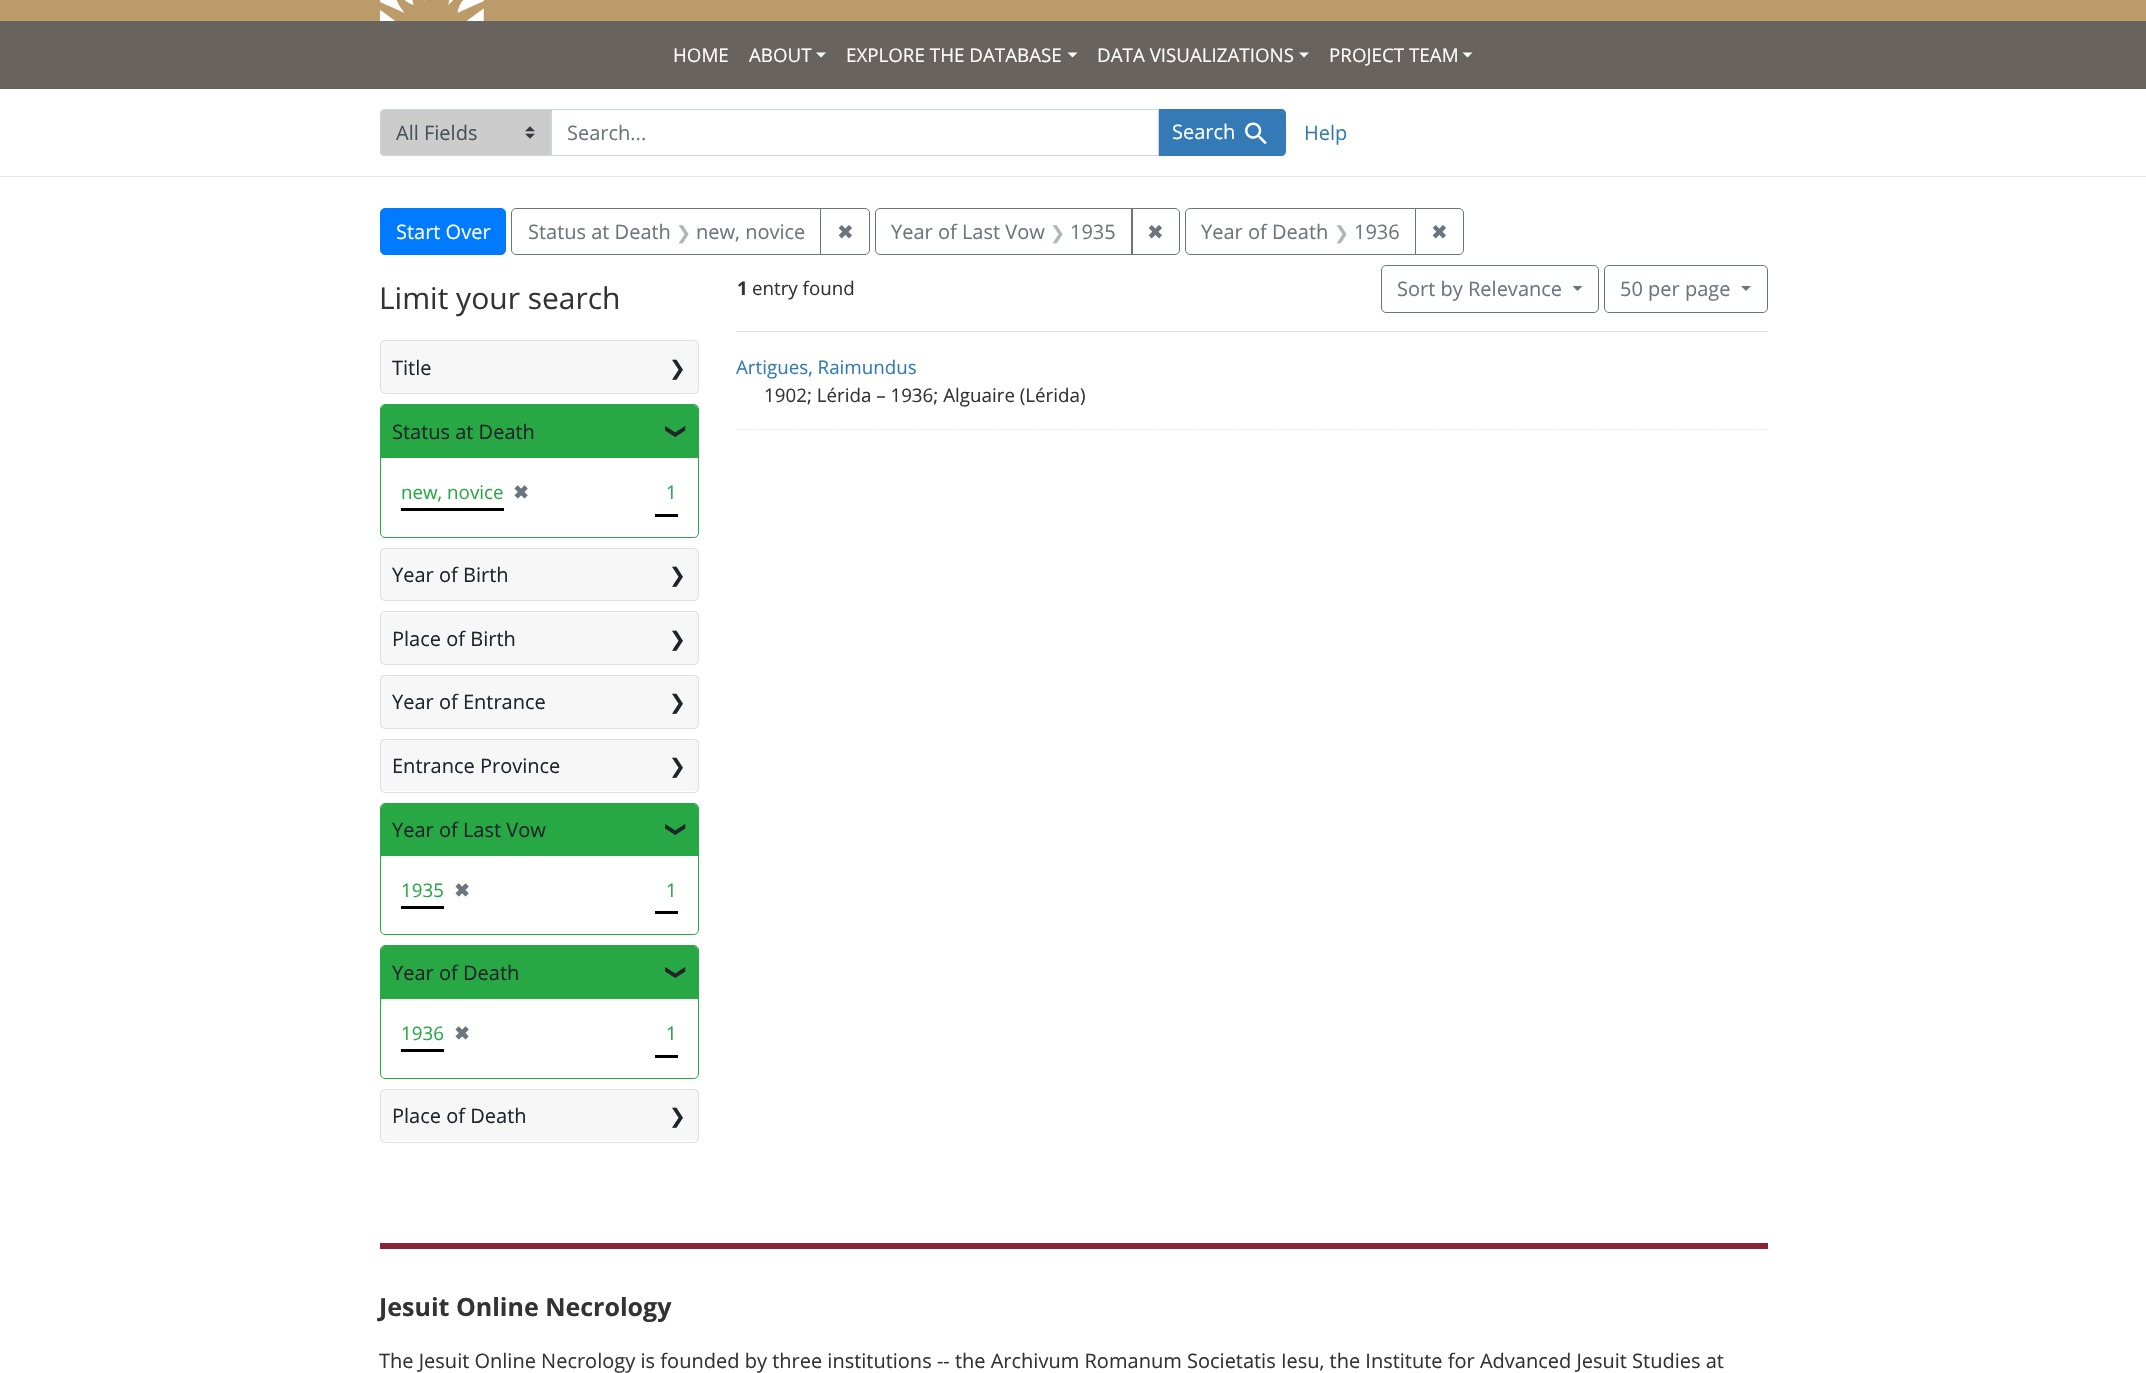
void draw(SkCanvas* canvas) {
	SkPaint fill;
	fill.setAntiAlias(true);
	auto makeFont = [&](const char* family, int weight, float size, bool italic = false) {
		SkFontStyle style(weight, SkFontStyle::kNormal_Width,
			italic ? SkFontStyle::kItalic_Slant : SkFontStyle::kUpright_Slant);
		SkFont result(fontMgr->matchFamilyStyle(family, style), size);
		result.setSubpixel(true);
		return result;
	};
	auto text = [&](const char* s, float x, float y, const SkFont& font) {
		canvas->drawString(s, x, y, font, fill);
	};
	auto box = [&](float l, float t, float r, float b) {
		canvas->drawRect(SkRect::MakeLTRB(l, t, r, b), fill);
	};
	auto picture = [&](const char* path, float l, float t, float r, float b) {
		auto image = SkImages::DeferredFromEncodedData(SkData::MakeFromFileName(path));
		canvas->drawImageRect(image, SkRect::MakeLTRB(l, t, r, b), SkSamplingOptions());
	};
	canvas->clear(0xFFFFFFFF);
	fill.setColor(0xFFBC9B6A);
	box(0, 0, 2146, 21);
	picture("image0.png", 380, 0, 484, 21);
	fill.setColor(0xFF69635F);
	box(0, 21, 2146, 89);
	fill.setColor(0xFFFFFFFF);
	canvas->drawPath(SkPathBuilder().moveTo(816, 52.5f).lineTo(826, 52.5f).lineTo(821, 57.5f).close().detach(), fill);
	canvas->drawPath(SkPathBuilder().moveTo(1067.5f, 52.5f).lineTo(1077.5f, 52.5f).lineTo(1072.5f, 57.5f).close().detach(), fill);
	canvas->drawPath(SkPathBuilder().moveTo(1299, 52.5f).lineTo(1309, 52.5f).lineTo(1304, 57.5f).close().detach(), fill);
	canvas->drawPath(SkPathBuilder().moveTo(1462.5f, 52.5f).lineTo(1472.5f, 52.5f).lineTo(1467.5f, 57.5f).close().detach(), fill);
	fill.setColor(0xFFE7E7E7);
	box(0, 176, 2146, 177);
	fill.setColor(0xFFCCCCCC);
	canvas->drawPath(SkPathBuilder().moveTo(385, 109).lineTo(551, 109).lineTo(551, 156).lineTo(385, 156).cubicTo(382, 156, 380, 154, 380, 151).lineTo(380, 114).cubicTo(380, 111, 382, 109, 385, 109).close().detach(), fill);
	picture("image1.png", 525, 126, 535, 139);
	fill.setStyle(SkPaint::kStroke_Style);
	fill.setStrokeWidth(1);
	fill.setColor(0xFFCED4DA);
	canvas->drawPath(SkPathBuilder().moveTo(385, 109.5f).lineTo(550.5f, 109.5f).lineTo(550.5f, 155.5f).lineTo(385, 155.5f).cubicTo(382.5f, 155.5f, 380.5f, 153.5f, 380.5f, 151).lineTo(380.5f, 114).cubicTo(380.5f, 111.5f, 382.5f, 109.5f, 385, 109.5f).close().detach(), fill);
	fill.setStyle(SkPaint::kFill_Style);
	fill.setColor(0xFF337AB7);
	canvas->drawPath(SkPathBuilder().moveTo(1158, 109).lineTo(1281, 109).cubicTo(1284, 109, 1286, 111, 1286, 114).lineTo(1286, 151).cubicTo(1286, 154, 1284, 156, 1281, 156).lineTo(1158, 156).close().detach(), fill);
	fill.setStyle(SkPaint::kStroke_Style);
	fill.setColor(0xFFCED4DA);
	canvas->drawRect(SkRect::MakeLTRB(551.5f, 109.5f, 1158.5f, 155.5f), fill);
	picture("image2.png", 1245, 122, 1267, 145);
	fill.setStyle(SkPaint::kFill_Style);
	fill.setColor(0xFF007BFF);
	canvas->drawRoundRect(SkRect::MakeLTRB(380.5f, 208.5f, 505.5f, 254.5f), 4.5f, 4.5f, fill);
	fill.setStyle(SkPaint::kStroke_Style);
	canvas->drawRoundRect(SkRect::MakeLTRB(380.5f, 208.5f, 505.5f, 254.5f), 4.5f, 4.5f, fill);
	fill.setColor(0xFF6C757D);
	canvas->drawPath(SkPathBuilder().moveTo(516, 208.5f).lineTo(820.5f, 208.5f).lineTo(820.5f, 254.5f).lineTo(516, 254.5f).cubicTo(513.5f, 254.5f, 511.5f, 252.5f, 511.5f, 250).lineTo(511.5f, 213).cubicTo(511.5f, 210.5f, 513.5f, 208.5f, 516, 208.5f).close().detach(), fill);
	canvas->drawPath(SkPathBuilder().moveTo(820.5f, 208.5f).lineTo(865, 208.5f).cubicTo(867.5f, 208.5f, 869.5f, 210.5f, 869.5f, 213).lineTo(869.5f, 250).cubicTo(869.5f, 252.5f, 867.5f, 254.5f, 865, 254.5f).lineTo(820.5f, 254.5f).close().detach(), fill);
	canvas->drawPath(SkPathBuilder().moveTo(880, 208.5f).lineTo(1132.5f, 208.5f).lineTo(1132.5f, 254.5f).lineTo(880, 254.5f).cubicTo(877.5f, 254.5f, 875.5f, 252.5f, 875.5f, 250).lineTo(875.5f, 213).cubicTo(875.5f, 210.5f, 877.5f, 208.5f, 880, 208.5f).close().detach(), fill);
	canvas->drawPath(SkPathBuilder().moveTo(1131.5f, 208.5f).lineTo(1175, 208.5f).cubicTo(1177.5f, 208.5f, 1179.5f, 210.5f, 1179.5f, 213).lineTo(1179.5f, 250).cubicTo(1179.5f, 252.5f, 1177.5f, 254.5f, 1175, 254.5f).lineTo(1131.5f, 254.5f).close().detach(), fill);
	canvas->drawPath(SkPathBuilder().moveTo(1190, 208.5f).lineTo(1415.5f, 208.5f).lineTo(1415.5f, 254.5f).lineTo(1190, 254.5f).cubicTo(1187.5f, 254.5f, 1185.5f, 252.5f, 1185.5f, 250).lineTo(1185.5f, 213).cubicTo(1185.5f, 210.5f, 1187.5f, 208.5f, 1190, 208.5f).close().detach(), fill);
	canvas->drawPath(SkPathBuilder().moveTo(1415.5f, 208.5f).lineTo(1459, 208.5f).cubicTo(1461.5f, 208.5f, 1463.5f, 210.5f, 1463.5f, 213).lineTo(1463.5f, 250).cubicTo(1463.5f, 252.5f, 1461.5f, 254.5f, 1459, 254.5f).lineTo(1415.5f, 254.5f).close().detach(), fill);
	fill.setColor(0xFFDFDFDF);
	canvas->drawRoundRect(SkRect::MakeLTRB(380.5f, 340.5f, 698.5f, 393.5f), 4.5f, 4.5f, fill);
	fill.setStyle(SkPaint::kFill_Style);
	fill.setColor(0x08000000);
	box(381, 341, 698, 393);
	fill.setStyle(SkPaint::kStroke_Style);
	fill.setColor(0xFF28A745);
	canvas->drawRoundRect(SkRect::MakeLTRB(380.5f, 404.5f, 698.5f, 537.5f), 4.5f, 4.5f, fill);
	fill.setStyle(SkPaint::kFill_Style);
	canvas->drawPath(SkPathBuilder().moveTo(385, 405).lineTo(694, 405).cubicTo(696, 405, 698, 407, 698, 409).lineTo(698, 458).lineTo(381, 458).lineTo(381, 409).cubicTo(381, 407, 383, 405, 385, 405).close().detach(), fill);
	fill.setColor(0xFF000000);
	box(401, 508, 504, 511);
	box(655, 514, 678, 517);
	fill.setStyle(SkPaint::kStroke_Style);
	fill.setColor(0xFFDFDFDF);
	canvas->drawRoundRect(SkRect::MakeLTRB(380.5f, 548.5f, 698.5f, 600.5f), 4.5f, 4.5f, fill);
	fill.setStyle(SkPaint::kFill_Style);
	fill.setColor(0x08000000);
	box(381, 549, 698, 600);
	fill.setStyle(SkPaint::kStroke_Style);
	fill.setColor(0xFFDFDFDF);
	canvas->drawRoundRect(SkRect::MakeLTRB(380.5f, 611.5f, 698.5f, 664.5f), 4.5f, 4.5f, fill);
	fill.setStyle(SkPaint::kFill_Style);
	fill.setColor(0x08000000);
	box(381, 613, 698, 664);
	fill.setStyle(SkPaint::kStroke_Style);
	fill.setColor(0xFFDFDFDF);
	canvas->drawRoundRect(SkRect::MakeLTRB(380.5f, 675.5f, 698.5f, 728.5f), 4.5f, 4.5f, fill);
	fill.setStyle(SkPaint::kFill_Style);
	fill.setColor(0x08000000);
	box(381, 676, 698, 728);
	fill.setStyle(SkPaint::kStroke_Style);
	fill.setColor(0xFFDFDFDF);
	canvas->drawRoundRect(SkRect::MakeLTRB(380.5f, 739.5f, 698.5f, 792.5f), 4.5f, 4.5f, fill);
	fill.setStyle(SkPaint::kFill_Style);
	fill.setColor(0x08000000);
	box(381, 740, 698, 791);
	fill.setStyle(SkPaint::kStroke_Style);
	fill.setColor(0xFF28A745);
	canvas->drawRoundRect(SkRect::MakeLTRB(380.5f, 803.5f, 698.5f, 934.5f), 4.5f, 4.5f, fill);
	fill.setStyle(SkPaint::kFill_Style);
	canvas->drawPath(SkPathBuilder().moveTo(385, 804).lineTo(694, 804).cubicTo(696, 804, 698, 806, 698, 808).lineTo(698, 856).lineTo(381, 856).lineTo(381, 808).cubicTo(381, 806, 383, 804, 385, 804).close().detach(), fill);
	fill.setColor(0xFF000000);
	box(401, 906, 444, 909);
	box(655, 911, 678, 914);
	fill.setStyle(SkPaint::kStroke_Style);
	fill.setColor(0xFF28A745);
	canvas->drawRoundRect(SkRect::MakeLTRB(380.5f, 945.5f, 698.5f, 1078.5f), 4.5f, 4.5f, fill);
	fill.setStyle(SkPaint::kFill_Style);
	canvas->drawPath(SkPathBuilder().moveTo(385, 946).lineTo(694, 946).cubicTo(696, 946, 698, 948, 698, 950).lineTo(698, 999).lineTo(381, 999).lineTo(381, 950).cubicTo(381, 948, 383, 946, 385, 946).close().detach(), fill);
	fill.setColor(0xFF000000);
	box(401, 1049, 444, 1052);
	box(655, 1055, 678, 1058);
	fill.setStyle(SkPaint::kStroke_Style);
	fill.setColor(0xFFDFDFDF);
	canvas->drawRoundRect(SkRect::MakeLTRB(380.5f, 1089.5f, 698.5f, 1142.5f), 4.5f, 4.5f, fill);
	fill.setStyle(SkPaint::kFill_Style);
	fill.setColor(0x08000000);
	box(381, 1090, 698, 1141);
	fill.setColor(0xFFDEE2E6);
	box(736, 331, 1768, 332);
	fill.setStyle(SkPaint::kStroke_Style);
	fill.setColor(0xFF6C757D);
	canvas->drawRoundRect(SkRect::MakeLTRB(1381.5f, 265.5f, 1598.5f, 312.5f), 4.5f, 4.5f, fill);
	fill.setStyle(SkPaint::kFill_Style);
	canvas->drawPath(SkPathBuilder().moveTo(1572.5f, 286).lineTo(1582.5f, 286).lineTo(1577.5f, 291).close().detach(), fill);
	fill.setStyle(SkPaint::kStroke_Style);
	canvas->drawRoundRect(SkRect::MakeLTRB(1604.5f, 265.5f, 1767.5f, 312.5f), 4.5f, 4.5f, fill);
	fill.setStyle(SkPaint::kFill_Style);
	canvas->drawPath(SkPathBuilder().moveTo(1741, 286).lineTo(1751, 286).lineTo(1746, 291).close().detach(), fill);
	fill.setStyle(SkPaint::kStroke_Style);
	fill.setStrokeWidth(1.2f);
	fill.setColor(0xFFDEE2E6);
	fill.setPathEffect(SkDashPathEffect::Make({{1.25f, 1.25f}}, 0));
	canvas->drawPath(SkPathBuilder().moveTo(736, 429.5f).lineTo(1767.5f, 429.5f).detach(), fill);
	fill.setPathEffect(nullptr);
	fill.setStyle(SkPaint::kFill_Style);
	fill.setColor(0xFF872334);
	box(380, 1243, 1768, 1249);
	auto font1 = makeFont("Open Sans", 400, 18.75f);
	fill.setColor(0xFFFFFFFF);
	text("HOME", 673, 62, font1);
	text("ABOUT", 749, 62, font1);
	text("EXPLORE THE DATABASE", 846, 62, font1);
	text("DATA VISUALIZATIONS", 1097, 62, font1);
	text("PROJECT TEAM", 1329, 62, font1);
	auto font2 = makeFont("Open Sans", 400, 20);
	fill.setColor(0xFF495057);
	text("All Fields", 396, 140, font2);
	fill.setColor(0xFF6C757D);
	text("Search...", 567, 140, font2);
	fill.setColor(0xFFFFFFFF);
	text("Search", 1172, 139, font2);
	fill.setColor(0xFF337AB7);
	text("Help", 1304, 140, font2);
	fill.setColor(0xFFFFFFFF);
	text("Start Over", 396, 239, font2);
	fill.setColor(0xFF6C757D);
	text("Status at Death", 528, 239, font2);
	auto font3 = makeFont("DejaVu Sans", 400, 18);
	fill.setColor(0xFFADB5BD);
	text("❯", 676, 239, font3);
	fill.setColor(0xFF6C757D);
	text("new, novice", 696, 239, font2);
	auto font4 = makeFont("DejaVu Sans", 400, 20);
	text("✖", 837, 239, font4);
	text("Year of Last Vow", 891, 239, font2);
	fill.setColor(0xFFADB5BD);
	text("❯", 1050, 239, font3);
	fill.setColor(0xFF6C757D);
	text("1935", 1070, 239, font2);
	text("✖", 1147, 239, font4);
	text("Year of Death", 1201, 239, font2);
	fill.setColor(0xFFADB5BD);
	text("❯", 1334, 239, font3);
	fill.setColor(0xFF6C757D);
	text("1936", 1354, 239, font2);
	text("✖", 1431, 239, font4);
	auto font5 = makeFont("Open Sans", 400, 30);
	fill.setColor(0xFF333333);
	text("Limit your search", 379, 309, font5);
	fill.setColor(0xFF212529);
	text("Title", 392, 375, font2);
	text("❯", 669, 375, font4);
	text("Status at Death", 392, 439, font2);
	canvas->save();
	canvas->rotate(90, 670, 423);
	text("❯", 670, 423, font4);
	canvas->restore();
	fill.setColor(0xFF28A745);
	text("new, novice", 401, 499, font1);
	auto font6 = makeFont("DejaVu Sans", 700, 18.75f);
	fill.setColor(0xFF6C757D);
	text("✖", 513, 499, font6);
	fill.setColor(0xFF28A745);
	text("1", 666, 499, font1);
	fill.setColor(0xFF212529);
	text("Year of Birth", 392, 582, font2);
	text("❯", 669, 582, font4);
	text("Place of Birth", 392, 646, font2);
	text("❯", 669, 646, font4);
	text("Year of Entrance", 392, 709, font2);
	text("❯", 669, 709, font4);
	text("Entrance Province", 392, 773, font2);
	text("❯", 669, 773, font4);
	text("Year of Last Vow", 392, 837, font2);
	canvas->save();
	canvas->rotate(90, 670, 821);
	text("❯", 670, 821, font4);
	canvas->restore();
	fill.setColor(0xFF28A745);
	text("1935", 401, 897, font1);
	fill.setColor(0xFF6C757D);
	text("✖", 454, 897, font6);
	fill.setColor(0xFF28A745);
	text("1", 666, 897, font1);
	fill.setColor(0xFF212529);
	text("Year of Death", 392, 980, font2);
	canvas->save();
	canvas->rotate(90, 670, 964);
	text("❯", 670, 964, font4);
	canvas->restore();
	fill.setColor(0xFF28A745);
	text("1936", 401, 1040, font1);
	fill.setColor(0xFF6C757D);
	text("✖", 454, 1040, font6);
	fill.setColor(0xFF28A745);
	text("1", 666, 1040, font1);
	fill.setColor(0xFF212529);
	text("Place of Death", 392, 1123, font2);
	text("❯", 669, 1123, font4);
	auto font7 = makeFont("Open Sans", 700, 18.75f);
	fill.setColor(0xFF333333);
	text("1", 737, 295, font7);
	text("entry found", 752, 295, font1);
	fill.setColor(0xFF6C757D);
	text("Sort by Relevance", 1397, 296, font2);
	text("50 per page", 1620, 296, font2);
	fill.setColor(0xFF337AB7);
	text("Artigues, Raimundus", 736, 374, font1);
	fill.setColor(0xFF333333);
	text("1902; Lérida – 1936; Alguaire (Lérida)", 764, 402, font1);
	auto font8 = makeFont("Open Sans", 700, 25);
	text("Jesuit Online Necrology", 379, 1316, font8);
	text("The Jesuit Online Necrology is founded by three institutions -- the Archivum Romanum Societatis Iesu, the Institute for Advanced Jesuit Studies at", 379, 1368, font2);
}
